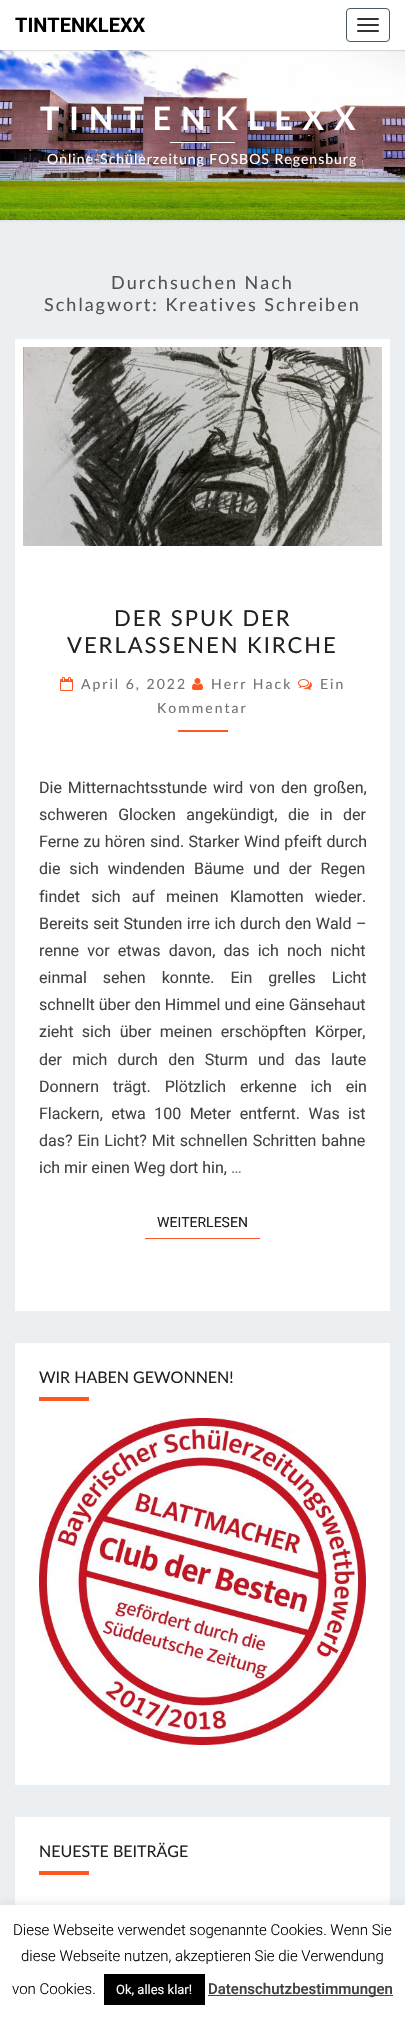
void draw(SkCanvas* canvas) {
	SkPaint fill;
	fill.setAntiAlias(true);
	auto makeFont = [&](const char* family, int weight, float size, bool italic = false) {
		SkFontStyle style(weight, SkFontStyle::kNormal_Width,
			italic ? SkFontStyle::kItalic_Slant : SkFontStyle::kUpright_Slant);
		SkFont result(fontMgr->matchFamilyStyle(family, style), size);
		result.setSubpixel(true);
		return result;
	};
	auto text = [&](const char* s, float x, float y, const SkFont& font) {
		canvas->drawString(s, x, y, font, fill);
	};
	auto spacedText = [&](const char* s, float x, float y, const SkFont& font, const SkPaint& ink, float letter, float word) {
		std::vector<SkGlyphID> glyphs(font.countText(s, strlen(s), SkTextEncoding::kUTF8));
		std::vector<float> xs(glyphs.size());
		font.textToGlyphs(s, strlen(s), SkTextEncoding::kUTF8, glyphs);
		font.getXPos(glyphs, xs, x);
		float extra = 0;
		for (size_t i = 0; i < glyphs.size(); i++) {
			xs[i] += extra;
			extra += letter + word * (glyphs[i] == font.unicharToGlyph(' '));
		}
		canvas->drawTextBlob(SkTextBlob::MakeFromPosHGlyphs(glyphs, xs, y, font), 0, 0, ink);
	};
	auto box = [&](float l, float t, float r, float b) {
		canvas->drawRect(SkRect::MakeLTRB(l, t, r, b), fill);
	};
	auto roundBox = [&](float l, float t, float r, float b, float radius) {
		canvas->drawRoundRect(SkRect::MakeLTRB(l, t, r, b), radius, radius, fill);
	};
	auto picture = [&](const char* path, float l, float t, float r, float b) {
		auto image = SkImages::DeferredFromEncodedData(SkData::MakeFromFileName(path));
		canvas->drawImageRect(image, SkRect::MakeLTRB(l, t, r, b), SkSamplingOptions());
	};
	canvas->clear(0xFFECEFF1);
	fill.setColor(0x4DB6B6B6);
	fill.setMaskFilter(SkMaskFilter::MakeBlur(kNormal_SkBlurStyle, 1));
	canvas->drawRect(SkRect::MakeLTRB(-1, 49, 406, 221), fill);
	fill.setMaskFilter(nullptr);
	picture("image0.png", 0, 50, 405, 220);
	fill.setColor(0x33646464);
	fill.setMaskFilter(SkMaskFilter::MakeBlur(kNormal_SkBlurStyle, 0.5f));
	canvas->drawRect(SkRect::MakeLTRB(0, 1, 405, 51), fill);
	fill.setMaskFilter(nullptr);
	fill.setColor(0xFFFFFFFF);
	box(0, 0, 405, 50);
	fill.setStyle(SkPaint::kStroke_Style);
	fill.setStrokeWidth(1);
	fill.setColor(0xFF455A64);
	canvas->drawRoundRect(SkRect::MakeLTRB(346.5f, 8.5f, 389.5f, 41.5f), 3.5f, 3.5f, fill);
	fill.setStyle(SkPaint::kFill_Style);
	fill.setColor(0xFF333333);
	roundBox(357, 18, 379, 20, 1);
	roundBox(357, 24, 379, 26, 1);
	roundBox(357, 30, 379, 32, 1);
	fill.setColor(0xFFFFFFFF);
	box(170, 142, 235, 143);
	box(15, 339, 390, 1311);
	picture("image1.png", 23, 347, 382, 546);
	picture("image2.png", 60, 677, 73, 691);
	picture("image3.png", 192, 678, 203, 690);
	picture("image4.png", 298, 679, 312, 690);
	fill.setColor(0xFFFF5722);
	box(178, 730, 228, 732);
	box(145, 1238, 260, 1239);
	fill.setColor(0xFFFFFFFF);
	box(15, 1343, 390, 1785);
	fill.setColor(0xFFFF5722);
	box(39, 1397, 89, 1401);
	picture("image5.png", 39, 1418, 366, 1745);
	fill.setColor(0xFFFFFFFF);
	box(15, 1817, 390, 1905);
	fill.setColor(0xFFFF5722);
	box(39, 1871, 89, 1875);
	fill.setColor(0x4DACABAB);
	fill.setMaskFilter(SkMaskFilter::MakeBlur(kNormal_SkBlurStyle, 5));
	canvas->drawRect(SkRect::MakeLTRB(0, 1904, 405, 2016), fill);
	fill.setMaskFilter(nullptr);
	fill.setColor(0xFFFFFFFF);
	box(0, 1905, 405, 2017);
	fill.setColor(0xFF000000);
	box(104, 1974, 205, 2005);
	fill.setColor(0xFF444444);
	box(208, 1995, 393, 1996);
	auto font1 = makeFont("Roboto", 700, 20);
	fill.setColor(0xFF000000);
	text("TINTENKLEXX", 15, 32, font1);
	auto font2 = makeFont("Lato", 700, 32);
	fill.setColor(0xFFFFFFFF);
	spacedText("TINTENKLEXX", 40, 130, font2, fill, 10, 0);
	auto font3 = makeFont("Lato", 400, 14);
	spacedText("Online-Schülerzeitung FOSBOS Regensburg", 47, 164, font3, fill, 1, 0);
	auto font4 = makeFont("Lato", 400, 18);
	fill.setColor(0xFF525252);
	spacedText("Durchsuchen Nach", 111, 289, font4, fill, 2, 0);
	spacedText("Schlagwort: Kreatives Schreiben", 44, 311, font4, fill, 2, 0);
	auto font5 = makeFont("Lato", 400, 22);
	fill.setColor(0xFF212121);
	spacedText("DER SPUK DER", 114, 626, font5, fill, 2, 0);
	spacedText("VERLASSENEN KIRCHE", 67, 653, font5, fill, 2, 0);
	fill.setColor(0xFF727272);
	spacedText("April 6, 2022", 81, 689, font3, fill, 2, 0);
	spacedText("Herr Hack", 211, 689, font3, fill, 2, 0);
	spacedText("Ein", 320, 689, font3, fill, 2, 0);
	spacedText("Kommentar", 157, 713, font3, fill, 2, 0);
	auto font6 = makeFont("Roboto", 400, 16);
	fill.setColor(0xFF424242);
	spacedText("Die Mitternachtsstunde wird von den großen,", 39, 793, font6, fill, 0, 2);
	spacedText("schweren Glocken angekündigt, die in der", 39, 820, font6, fill, 0, 6.5f);
	spacedText("Ferne zu hören sind. Starker Wind pfeift durch", 39, 847, font6, fill, 0, 0.5f);
	spacedText("die sich windenden Bäume und der Regen", 39, 874, font6, fill, 0, 5);
	spacedText("findet sich auf meinen Klamotten wieder.", 39, 902, font6, fill, 0, 7.25f);
	spacedText("Bereits seit Stunden irre ich durch den Wald –", 39, 929, font6, fill, 0, 0.5f);
	spacedText("renne vor etwas davon, das ich noch nicht", 39, 956, font6, fill, 0, 4.25f);
	spacedText("einmal sehen konnte. Ein grelles Licht", 39, 983, font6, fill, 0, 12);
	text("schnellt über den Himmel und eine Gänsehaut", 39, 1010, font6);
	spacedText("zieht sich über meinen erschöpften Körper,", 39, 1037, font6, fill, 0, 4.5f);
	spacedText("der mich durch den Sturm und das laute", 39, 1065, font6, fill, 0, 6.25f);
	spacedText("Donnern trägt. Plötzlich erkenne ich ein", 39, 1092, font6, fill, 0, 10);
	spacedText("Flackern, etwa 100 Meter entfernt. Was ist", 39, 1119, font6, fill, 0, 4.5f);
	spacedText("das? Ein Licht? Mit schnellen Schritten bahne", 39, 1146, font6, fill, 0, 1);
	text("ich mir einen Weg dort hin,", 39, 1173, font6);
	fill.setColor(0xFF607D8B);
	text("…", 231, 1173, font6);
	auto font7 = makeFont("Roboto", 400, 14);
	fill.setColor(0xFF212121);
	text("WEITERLESEN", 157, 1227, font7);
	auto font8 = makeFont("Lato", 400, 16);
	text("WIR HABEN GEWONNEN!", 39, 1383, font8);
	text("NEUESTE BEITRÄGE", 39, 1857, font8);
	auto font9 = makeFont("Roboto", 300, 15);
	fill.setColor(0xFF000000);
	text("Diese Webseite verwendet sogenannte Cookies. Wenn Sie", 13, 1935, font9);
	text("diese Webseite nutzen, akzeptieren Sie die Verwendung", 21, 1961, font9);
	text("von Cookies.", 12, 1994, font9);
	auto font10 = makeFont("Roboto", 400, 13);
	fill.setColor(0xFFFFFFFF);
	text("Ok, alles klar!", 116, 1994, font10);
	auto font11 = makeFont("Roboto", 500, 15);
	fill.setColor(0xFF424242);
	text("Datenschutzbestimmungen", 208, 1994, font11);
}
